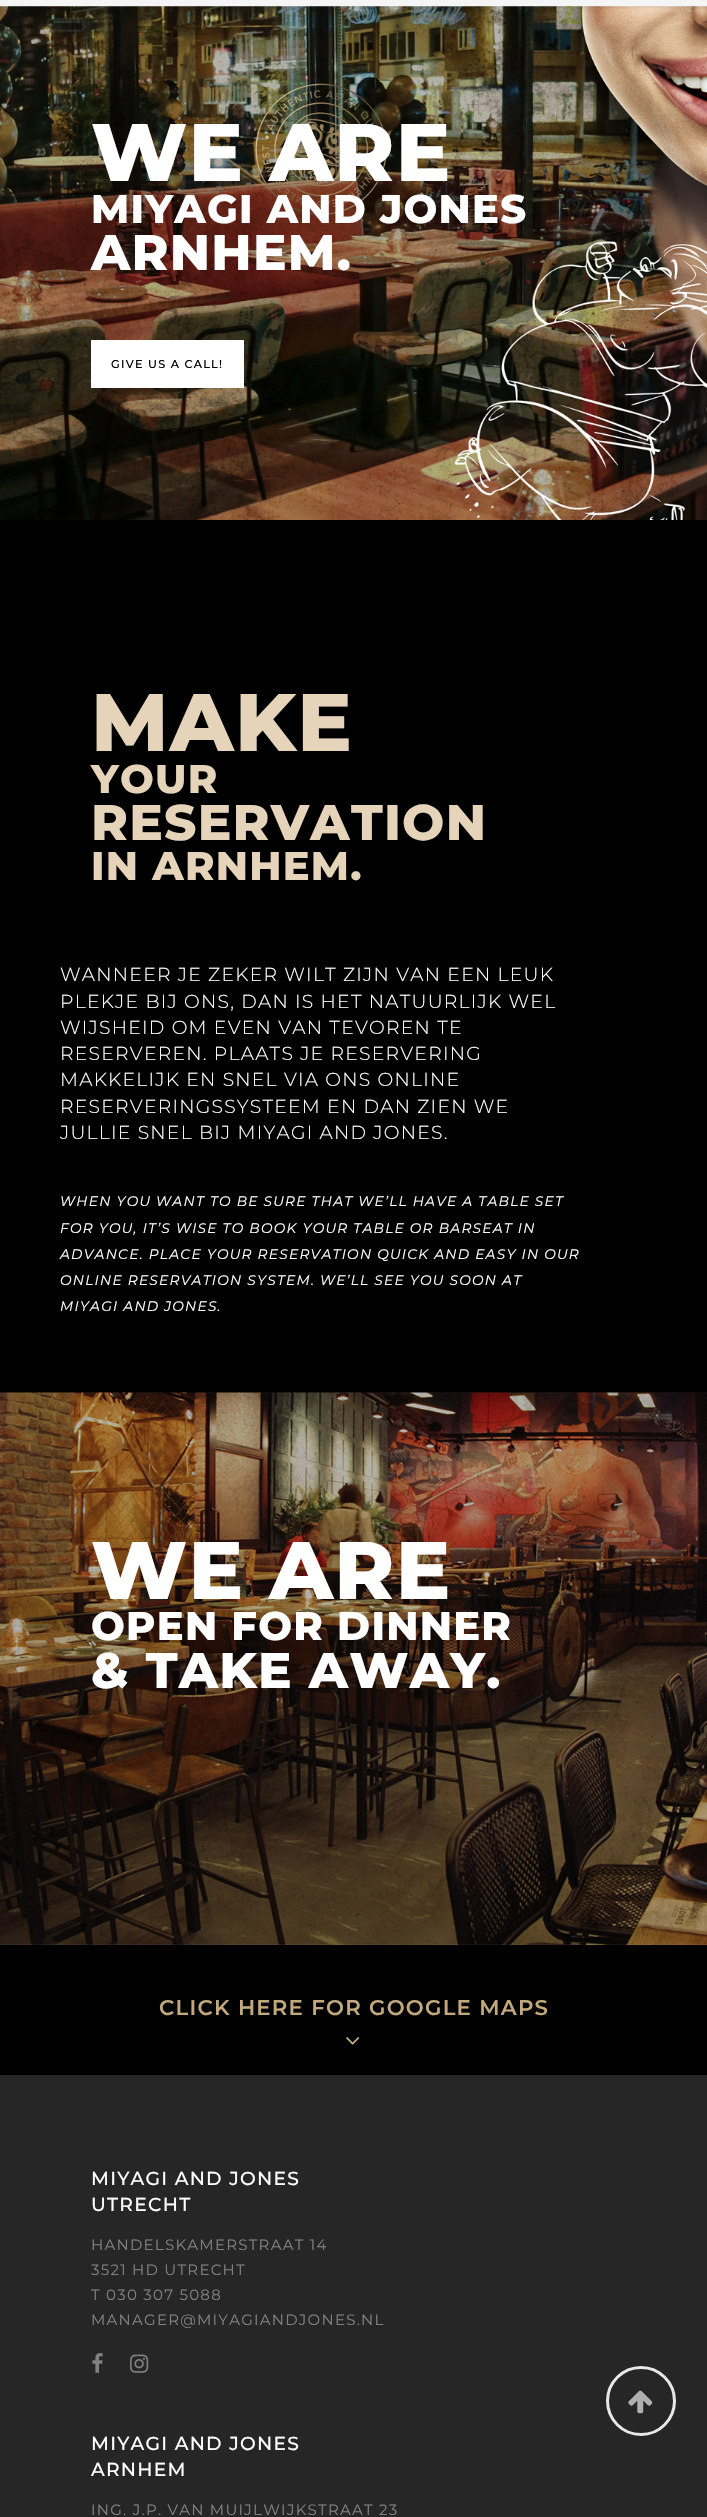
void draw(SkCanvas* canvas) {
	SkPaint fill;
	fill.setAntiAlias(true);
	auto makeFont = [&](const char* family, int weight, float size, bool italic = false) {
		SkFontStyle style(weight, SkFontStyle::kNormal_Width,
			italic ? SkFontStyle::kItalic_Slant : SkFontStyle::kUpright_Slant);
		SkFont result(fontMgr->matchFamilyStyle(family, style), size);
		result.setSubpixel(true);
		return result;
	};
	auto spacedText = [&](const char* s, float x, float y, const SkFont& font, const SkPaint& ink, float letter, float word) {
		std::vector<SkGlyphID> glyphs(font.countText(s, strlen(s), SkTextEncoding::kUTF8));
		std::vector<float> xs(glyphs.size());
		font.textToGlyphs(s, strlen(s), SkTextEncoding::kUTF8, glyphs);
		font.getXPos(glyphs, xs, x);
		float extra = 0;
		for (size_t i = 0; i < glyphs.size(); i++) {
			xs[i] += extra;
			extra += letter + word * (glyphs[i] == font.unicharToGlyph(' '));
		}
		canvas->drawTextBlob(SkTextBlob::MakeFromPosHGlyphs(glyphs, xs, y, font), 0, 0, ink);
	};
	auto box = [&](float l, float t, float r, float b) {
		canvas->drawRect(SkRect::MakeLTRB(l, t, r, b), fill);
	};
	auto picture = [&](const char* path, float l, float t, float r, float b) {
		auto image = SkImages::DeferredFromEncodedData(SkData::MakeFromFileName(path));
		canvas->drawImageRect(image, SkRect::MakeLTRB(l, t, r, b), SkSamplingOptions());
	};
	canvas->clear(0xFF000000);
	fill.setColor(0xFFF5F5F5);
	box(0, 0, 707, 7);
	picture("image0.png", 0, 6, 707, 520);
	fill.setColor(0xFFFFFFFF);
	box(91, 340, 244, 388);
	picture("image1.png", 0, 1392, 707, 1945);
	picture("image2.png", 346, 2037, 360, 2045);
	fill.setColor(0xFF262626);
	box(0, 2075, 707, 2517);
	picture("image3.png", 92, 2353, 103, 2373);
	picture("image4.png", 130, 2354, 149, 2373);
	fill.setStyle(SkPaint::kStroke_Style);
	fill.setStrokeWidth(3);
	fill.setColor(0xFFE8E8E8);
	canvas->drawCircle(641, 2401, 33.5f, fill);
	picture("image5.png", 628, 2390, 653, 2414);
	auto font1 = makeFont("Montserrat", 800, 81.25f);
	fill.setStyle(SkPaint::kFill_Style);
	fill.setColor(0xFFFFFFFF);
	spacedText("WE ARE", 91, 181, font1, fill, 1.25f, 0);
	auto font2 = makeFont("Montserrat", 800, 40);
	spacedText("MIYAGI AND JONES", 91, 223, font2, fill, 1.25f, 0);
	auto font3 = makeFont("Montserrat", 800, 50);
	spacedText("ARNHEM.", 91, 270, font3, fill, 1.25f, 0);
	auto font4 = makeFont("Montserrat", 500, 11.25f);
	fill.setColor(0xFF000000);
	spacedText("GIVE US A CALL!", 111, 368, font4, fill, 1.25f, 0);
	fill.setColor(0xFFE5D4B9);
	spacedText("MAKE", 91, 751, font1, fill, 1.25f, 0);
	spacedText("YOUR", 91, 793, font2, fill, 1.25f, 0);
	spacedText("RESERVATION", 91, 840, font3, fill, 1.25f, 0);
	spacedText("IN ARNHEM.", 91, 880, font2, fill, 1.25f, 0);
	auto font5 = makeFont("Montserrat", 300, 18.75f);
	fill.setColor(0xFFFFFFFF);
	spacedText("WANNEER JE ZEKER WILT ZIJN VAN EEN LEUK", 60, 981, font5, fill, 1.25f, 0);
	spacedText("PLEKJE BIJ ONS, DAN IS HET NATUURLIJK WEL", 60, 1008, font5, fill, 1.25f, 0);
	spacedText("WIJSHEID OM EVEN VAN TEVOREN TE", 60, 1034, font5, fill, 1.25f, 0);
	spacedText("RESERVEREN. PLAATS JE RESERVERING", 60, 1060, font5, fill, 1.25f, 0);
	spacedText("MAKKELIJK EN SNEL VIA ONS ONLINE", 60, 1086, font5, fill, 1.25f, 0);
	spacedText("RESERVERINGSSYSTEEM EN DAN ZIEN WE", 60, 1113, font5, fill, 1.25f, 0);
	spacedText("JULLIE SNEL BIJ MIYAGI AND JONES.", 60, 1139, font5, fill, 1.25f, 0);
	auto font6 = makeFont("Montserrat", 400, 13.75f, true);
	spacedText("WHEN YOU WANT TO BE SURE THAT WE’LL HAVE A TABLE SET", 60, 1206, font6, fill, 1.25f, 0);
	spacedText("FOR YOU, IT’S WISE TO BOOK YOUR TABLE OR BARSEAT IN", 60, 1233, font6, fill, 1.25f, 0);
	spacedText("ADVANCE. PLACE YOUR RESERVATION QUICK AND EASY IN OUR", 60, 1259, font6, fill, 1.25f, 0);
	spacedText("ONLINE RESERVATION SYSTEM. WE’LL SEE YOU SOON AT", 60, 1285, font6, fill, 1.25f, 0);
	spacedText("MIYAGI AND JONES.", 60, 1311, font6, fill, 1.25f, 0);
	spacedText("WE ARE", 91, 1599, font1, fill, 1.25f, 0);
	spacedText("OPEN FOR DINNER", 91, 1640, font2, fill, 1.25f, 0);
	spacedText("& TAKE AWAY.", 91, 1688, font3, fill, 1.25f, 0);
	auto font7 = makeFont("Montserrat", 600, 21.25f);
	fill.setColor(0xFFC2A97C);
	spacedText("CLICK HERE FOR GOOGLE MAPS", 159, 2015, font7, fill, 1.25f, 0);
	auto font8 = makeFont("Montserrat", 500, 18.75f);
	fill.setColor(0xFFFFFFFF);
	spacedText("MIYAGI AND JONES", 91, 2185, font8, fill, 1.25f, 0);
	spacedText("UTRECHT", 91, 2211, font8, fill, 1.25f, 0);
	auto font9 = makeFont("Montserrat", 400, 15);
	fill.setColor(0xFF818181);
	spacedText("HANDELSKAMERSTRAAT 14", 91, 2250, font9, fill, 1.25f, 0);
	spacedText("3521 HD UTRECHT", 91, 2275, font9, fill, 1.25f, 0);
	spacedText("T 030 307 5088", 91, 2300, font9, fill, 1.25f, 0);
	spacedText("MANAGER@MIYAGIANDJONES.NL", 91, 2325, font9, fill, 1.25f, 0);
	fill.setColor(0xFFFFFFFF);
	spacedText("MIYAGI AND JONES", 91, 2450, font8, fill, 1.25f, 0);
	spacedText("ARNHEM", 91, 2476, font8, fill, 1.25f, 0);
	fill.setColor(0xFF818181);
	spacedText("ING. J.P. VAN MUIJLWIJKSTRAAT 23", 91, 2515, font9, fill, 1.25f, 0);
}
